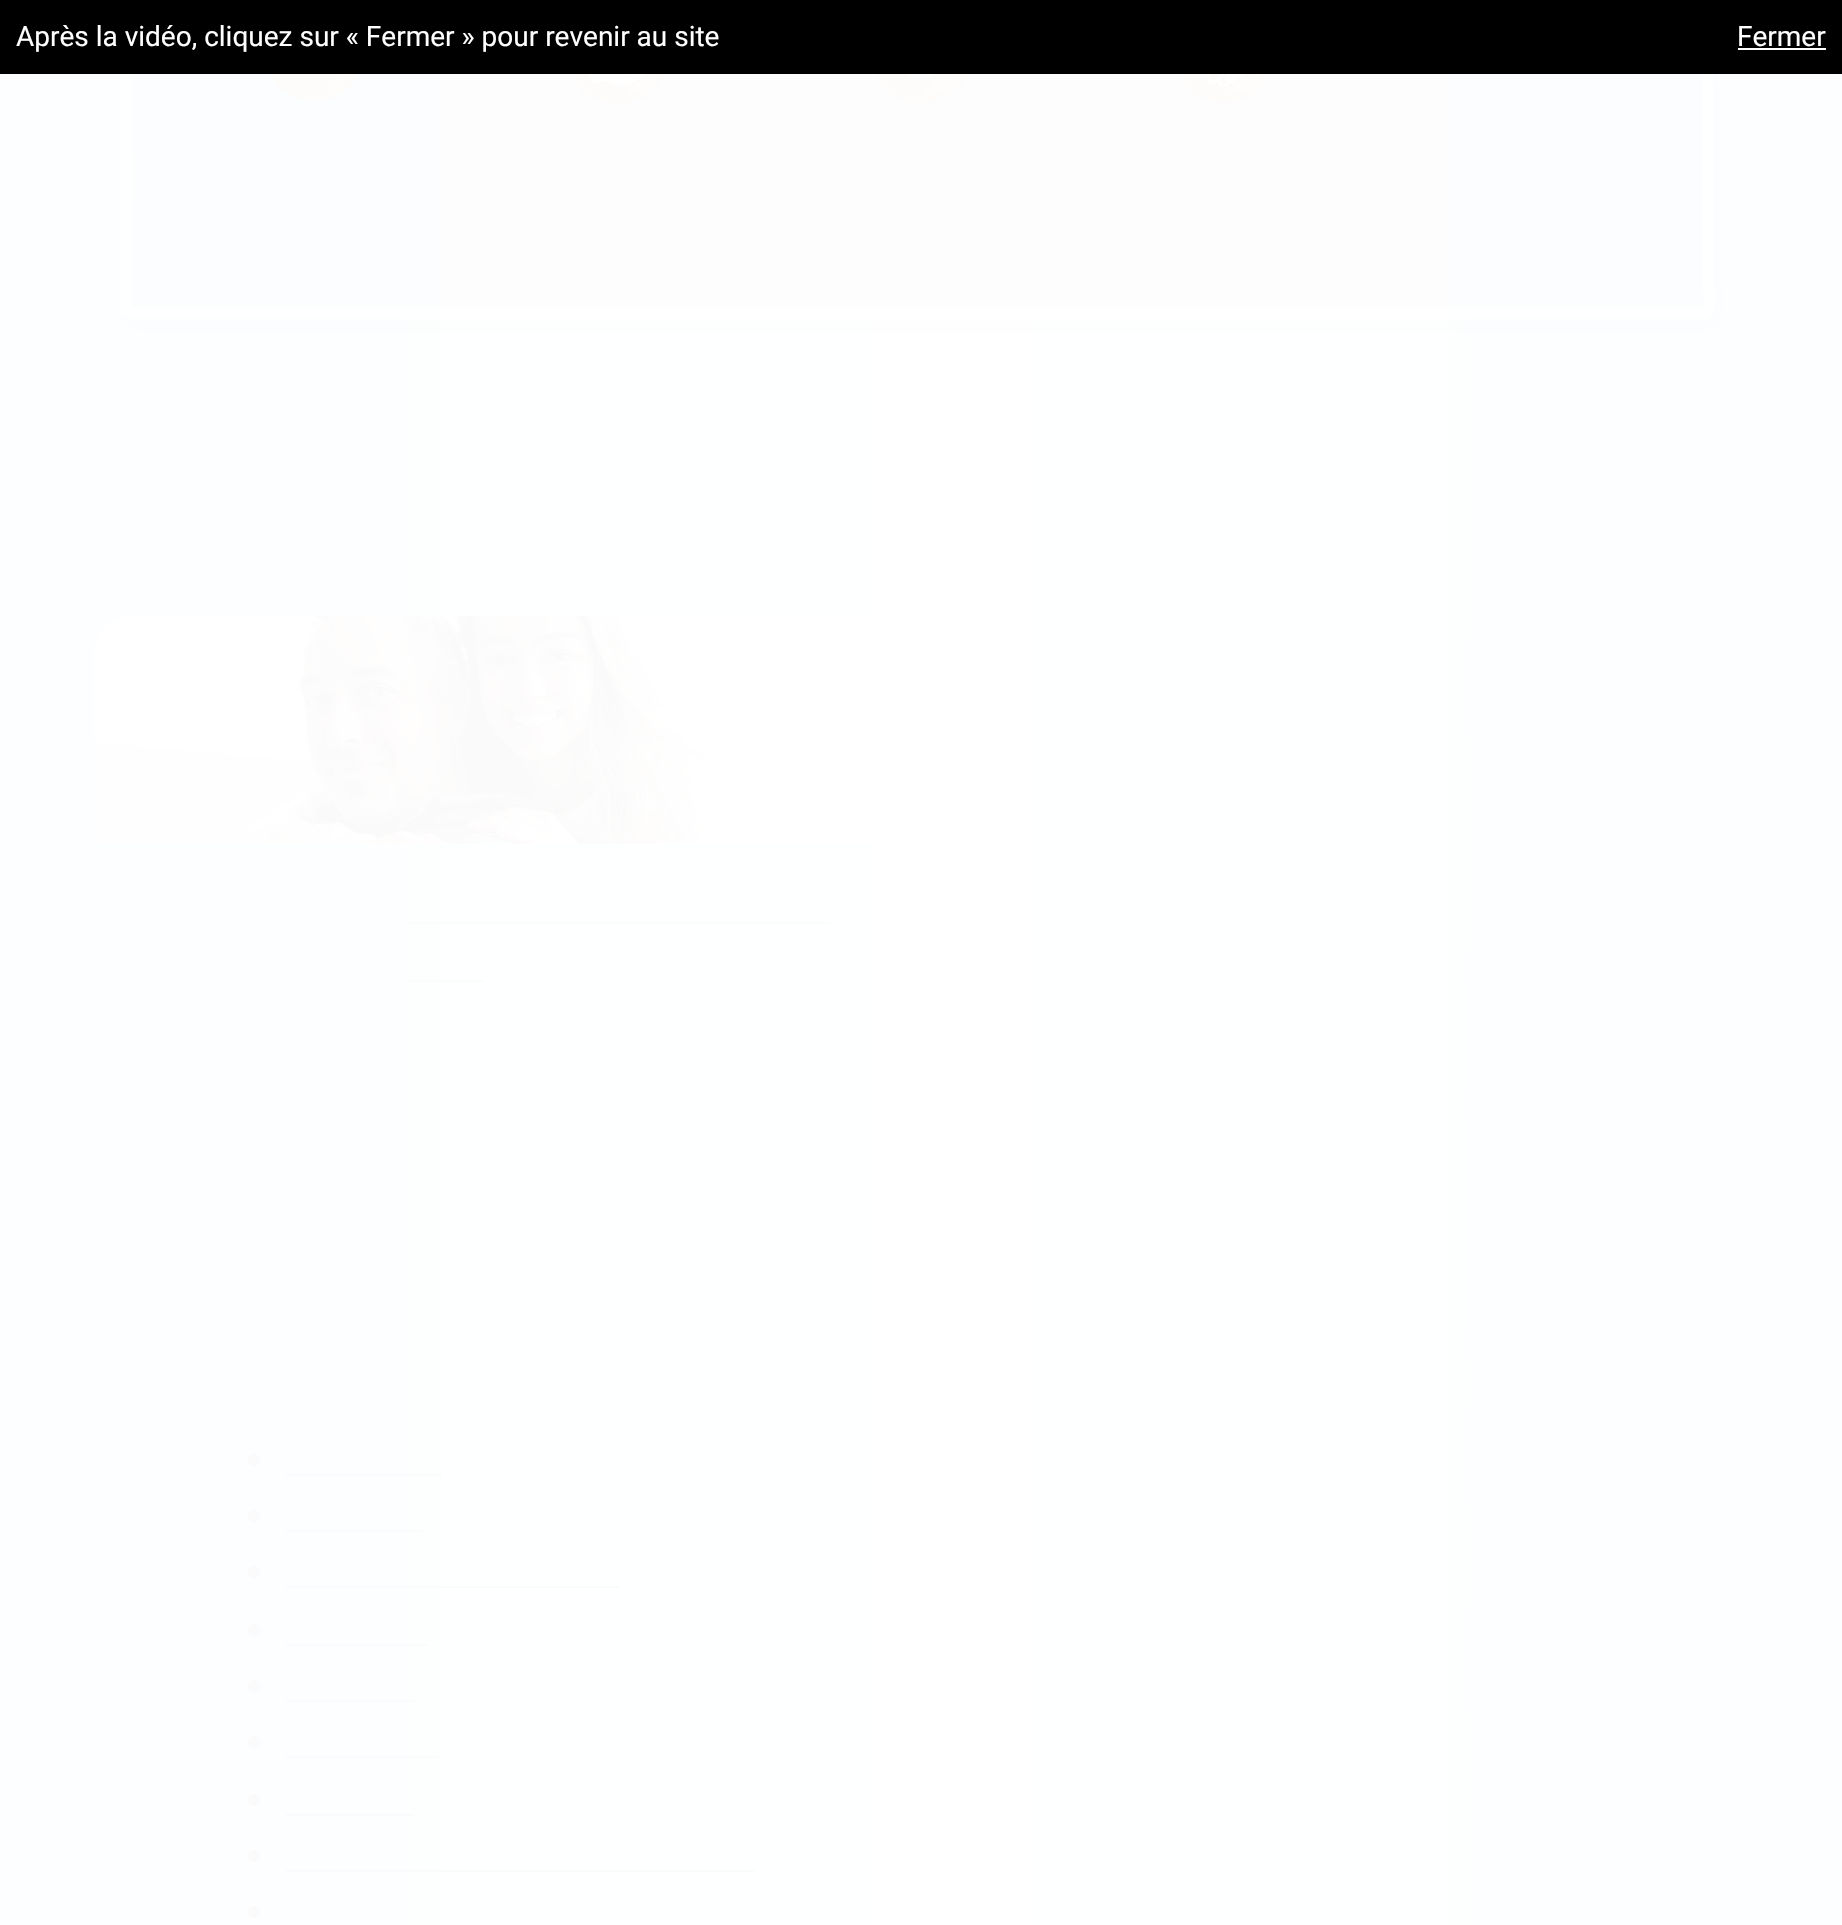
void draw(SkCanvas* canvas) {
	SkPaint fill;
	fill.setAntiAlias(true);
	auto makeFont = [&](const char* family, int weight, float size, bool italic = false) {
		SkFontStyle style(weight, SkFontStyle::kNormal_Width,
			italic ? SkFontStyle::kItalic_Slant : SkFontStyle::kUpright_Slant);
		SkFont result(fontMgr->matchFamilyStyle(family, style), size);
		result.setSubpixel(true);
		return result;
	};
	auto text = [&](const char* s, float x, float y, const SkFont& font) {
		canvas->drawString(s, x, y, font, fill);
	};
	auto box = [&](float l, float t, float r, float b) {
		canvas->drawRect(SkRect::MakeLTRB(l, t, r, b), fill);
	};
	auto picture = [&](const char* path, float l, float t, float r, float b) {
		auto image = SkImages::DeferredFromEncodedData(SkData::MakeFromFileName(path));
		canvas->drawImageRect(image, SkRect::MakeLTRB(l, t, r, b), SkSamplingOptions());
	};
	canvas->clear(0xFFFFFFFF);
	picture("image0.png", 0, 74, 1842, 1925);
	fill.setColor(0xFF000000);
	box(0, 0, 1842, 74);
	fill.setColor(0xFFFFFFFF);
	box(1738, 48, 1826, 50);
	picture("image1.png", 108, 74, 1732, 290);
	picture("image2.png", 268, 74, 361, 104);
	picture("image3.png", 570, 74, 668, 107);
	picture("image4.png", 874, 74, 969, 106);
	picture("image5.png", 1176, 74, 1271, 106);
	picture("image6.png", 1516, 74, 1539, 76);
	picture("image7.png", 108, 290, 1734, 346);
	picture("image8.png", 94, 616, 900, 844);
	fill.setColor(0xFFFCFCFD);
	box(406, 922, 830, 924);
	box(406, 980, 484, 982);
	fill.setColor(0xFFFBFBFB);
	canvas->drawCircle(254, 1460, 6, fill);
	box(286, 1474, 442, 1476);
	canvas->drawCircle(254, 1516, 6, fill);
	box(286, 1530, 422, 1532);
	canvas->drawCircle(254, 1572, 6, fill);
	box(286, 1586, 620, 1588);
	canvas->drawCircle(254, 1630, 6, fill);
	box(286, 1644, 428, 1646);
	canvas->drawCircle(254, 1686, 6, fill);
	box(286, 1700, 414, 1702);
	canvas->drawCircle(254, 1742, 6, fill);
	box(286, 1756, 438, 1758);
	canvas->drawCircle(254, 1800, 6, fill);
	box(286, 1814, 414, 1816);
	canvas->drawCircle(254, 1856, 6, fill);
	box(286, 1870, 754, 1872);
	canvas->drawCircle(254, 1912, 6, fill);
	auto font1 = makeFont("Roboto", 400, 28);
	fill.setColor(0xFFFFFFFF);
	text("Après la vidéo, cliquez sur « Fermer » pour revenir au site", 16, 46, font1);
	text("Fermer", 1737, 46, font1);
}
